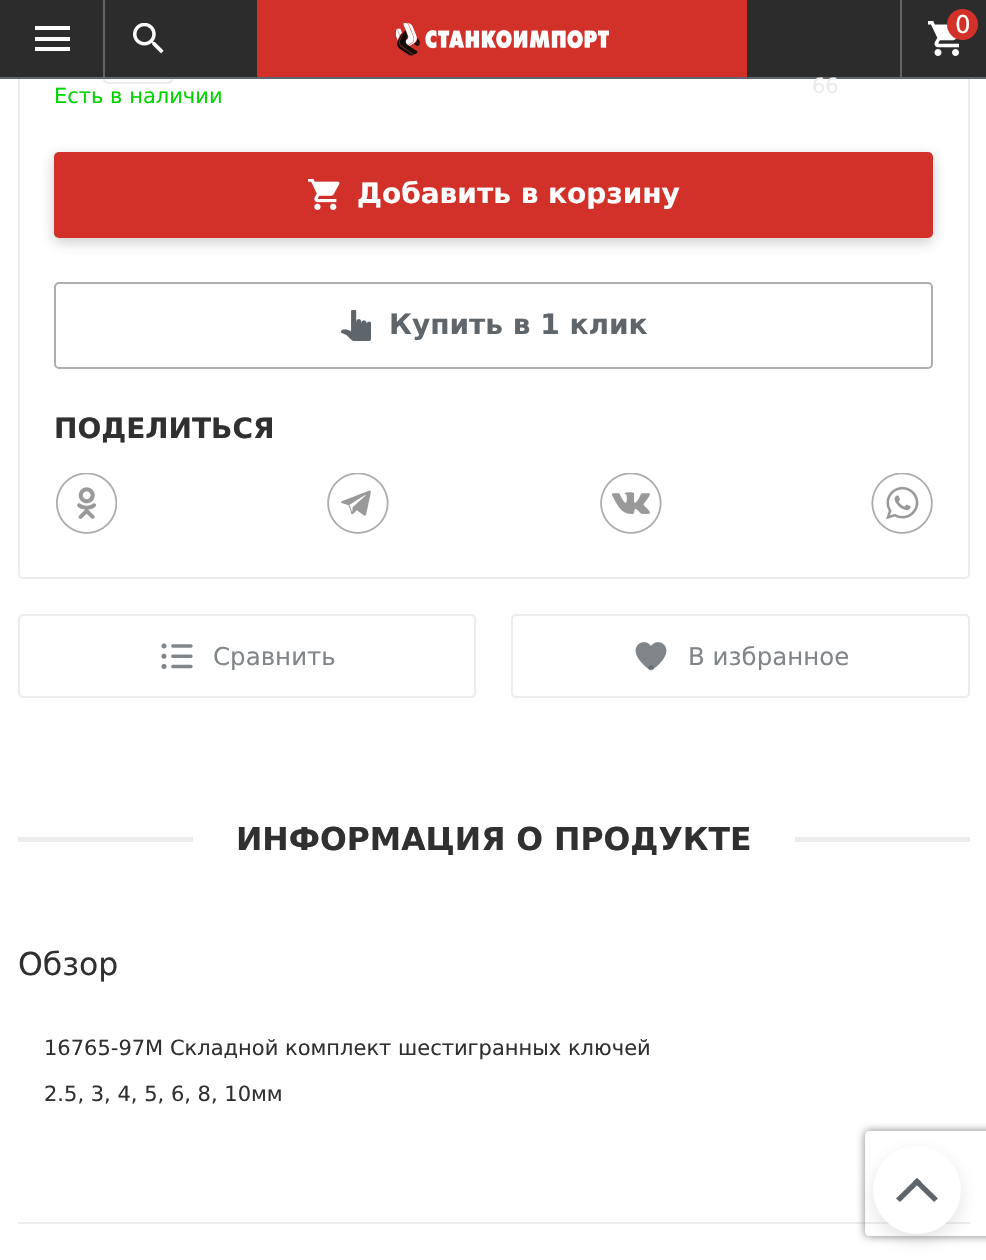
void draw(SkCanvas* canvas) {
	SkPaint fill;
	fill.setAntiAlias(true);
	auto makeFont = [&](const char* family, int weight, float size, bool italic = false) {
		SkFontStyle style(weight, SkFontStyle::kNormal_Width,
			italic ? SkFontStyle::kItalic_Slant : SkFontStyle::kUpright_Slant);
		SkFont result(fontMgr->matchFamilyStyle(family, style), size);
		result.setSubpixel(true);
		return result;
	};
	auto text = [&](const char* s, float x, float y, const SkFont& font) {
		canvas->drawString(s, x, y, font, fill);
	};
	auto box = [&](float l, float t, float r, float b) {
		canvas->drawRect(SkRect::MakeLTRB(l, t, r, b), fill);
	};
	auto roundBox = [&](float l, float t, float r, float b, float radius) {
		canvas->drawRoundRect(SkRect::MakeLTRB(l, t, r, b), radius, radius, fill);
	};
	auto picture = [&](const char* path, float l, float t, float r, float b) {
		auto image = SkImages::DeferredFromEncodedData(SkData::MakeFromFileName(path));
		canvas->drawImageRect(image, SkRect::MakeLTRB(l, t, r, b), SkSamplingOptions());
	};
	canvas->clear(0xFFFFFFFF);
	fill.setStyle(SkPaint::kStroke_Style);
	fill.setStrokeWidth(2);
	fill.setColor(0xFFECECEC);
	canvas->drawRoundRect(SkRect::MakeLTRB(19, -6, 969, 578), 4, 4, fill);
	canvas->drawRoundRect(SkRect::MakeLTRB(104, 36, 172, 83), 4, 4, fill);
	fill.setStyle(SkPaint::kFill_Style);
	fill.setColor(0xFF2C2C2C);
	box(0, 0, 986, 77);
	fill.setColor(0xFF5F666B);
	box(0, 77, 986, 79);
	box(103, 0, 105, 77);
	fill.setColor(0xFFFFFFFF);
	box(35, 26, 70, 30);
	box(35, 37, 70, 41);
	box(35, 47, 70, 51);
	picture("image0.png", 133, 23, 164, 54);
	fill.setColor(0xFFD13129);
	box(257, 0, 747, 77);
	picture("image1.png", 396, 23, 609, 56);
	picture("image2.png", 928, 21, 959, 56);
	fill.setColor(0xFF5F666B);
	box(900, 0, 902, 77);
	fill.setColor(0xFFD13129);
	canvas->drawCircle(962.5f, 24.5f, 15.5f, fill);
	fill.setColor(0x40303030);
	fill.setMaskFilter(SkMaskFilter::MakeBlur(kNormal_SkBlurStyle, 7));
	canvas->drawRoundRect(SkRect::MakeLTRB(54, 156, 933, 242), 5, 5, fill);
	fill.setMaskFilter(nullptr);
	fill.setColor(0xFFD13129);
	roundBox(54, 152, 933, 238, 5);
	picture("image3.png", 308, 179, 340, 210);
	fill.setStyle(SkPaint::kStroke_Style);
	fill.setColor(0xFFAEAEAE);
	canvas->drawRoundRect(SkRect::MakeLTRB(55, 283, 932, 368), 4, 4, fill);
	picture("image4.png", 340, 310, 371, 341);
	picture("image5.png", 56, 473, 117, 534);
	picture("image6.png", 327, 473, 389, 534);
	picture("image7.png", 600, 473, 662, 534);
	picture("image8.png", 871, 473, 933, 534);
	fill.setColor(0xFFECECEC);
	canvas->drawRoundRect(SkRect::MakeLTRB(19, 615, 475, 697), 4, 4, fill);
	picture("image9.png", 161, 643, 193, 669);
	canvas->drawRoundRect(SkRect::MakeLTRB(512, 615, 969, 697), 4, 4, fill);
	picture("image10.png", 635, 642, 667, 671);
	fill.setStyle(SkPaint::kFill_Style);
	box(18, 837, 970, 842);
	fill.setColor(0xFFFFFFFF);
	box(193, 837, 795, 842);
	fill.setColor(0xFFECECEC);
	box(18, 1222, 970, 1224);
	canvas->save();
	canvas->clipPath(SkPathBuilder(SkPathFillType::kEvenOdd).moveTo(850, 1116).lineTo(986, 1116).lineTo(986, 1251).lineTo(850, 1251).close().moveTo(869, 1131).lineTo(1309, 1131).cubicTo(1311, 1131, 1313, 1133, 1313, 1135).lineTo(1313, 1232).cubicTo(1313, 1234, 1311, 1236, 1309, 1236).lineTo(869, 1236).cubicTo(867, 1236, 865, 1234, 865, 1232).lineTo(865, 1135).cubicTo(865, 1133, 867, 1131, 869, 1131).close().detach(), true);
	fill.setColor(0xFF808080);
	fill.setMaskFilter(SkMaskFilter::MakeBlur(kNormal_SkBlurStyle, 4.5f));
	canvas->drawRoundRect(SkRect::MakeLTRB(865, 1131, 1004, 1236), 4, 4, fill);
	fill.setMaskFilter(nullptr);
	canvas->restore();
	fill.setColor(0x26574D4D);
	fill.setMaskFilter(SkMaskFilter::MakeBlur(kNormal_SkBlurStyle, 9));
	canvas->drawRoundRect(SkRect::MakeLTRB(873, 1153, 961, 1241), 44, 44, fill);
	fill.setMaskFilter(nullptr);
	fill.setColor(0xFFFFFFFF);
	canvas->drawCircle(917, 1190, 44, fill);
	fill.setColor(0xFF5F666B);
	canvas->drawPath(SkPathBuilder().moveTo(934, 1202).lineTo(938, 1198.5f).lineTo(917, 1178).lineTo(913, 1181.5f).close().detach(), fill);
	canvas->drawPath(SkPathBuilder().moveTo(896, 1198.5f).lineTo(900, 1202).lineTo(921, 1181.5f).lineTo(917, 1178).close().detach(), fill);
	auto font1 = makeFont("DejaVu Sans", 400, 24.5f);
	fill.setColor(0xFFFFFFFF);
	text("0", 955, 33, font1);
	auto font2 = makeFont("DejaVu Sans", 400, 21);
	fill.setColor(0xFFECECED);
	text("66", 812, 93, font2);
	fill.setColor(0xFF00D500);
	text("Есть в наличии", 54, 103, font2);
	auto font3 = makeFont("DejaVu Sans", 700, 28);
	fill.setColor(0xFFFFFFFF);
	text("Добавить в корзину", 357, 203, font3);
	fill.setColor(0xFF5F666B);
	text("Купить в 1 клик", 389, 334, font3);
	fill.setColor(0xFF303030);
	text("ПОДЕЛИТЬСЯ", 54, 438, font3);
	fill.setColor(0xFF7F8589);
	text("Сравнить", 213, 665, font1);
	text("В избранное", 688, 665, font1);
	auto font4 = makeFont("DejaVu Sans", 700, 31.5f);
	fill.setColor(0xFF303030);
	text("ИНФОРМАЦИЯ О ПРОДУКТЕ", 236, 850, font4);
	auto font5 = makeFont("DejaVu Sans", 400, 31.5f);
	text("Обзор", 18, 975, font5);
	text("16765-97M Складной комплект шестигранных ключей", 44, 1055, font2);
	text("2.5, 3, 4, 5, 6, 8, 10мм", 44, 1101, font2);
}
